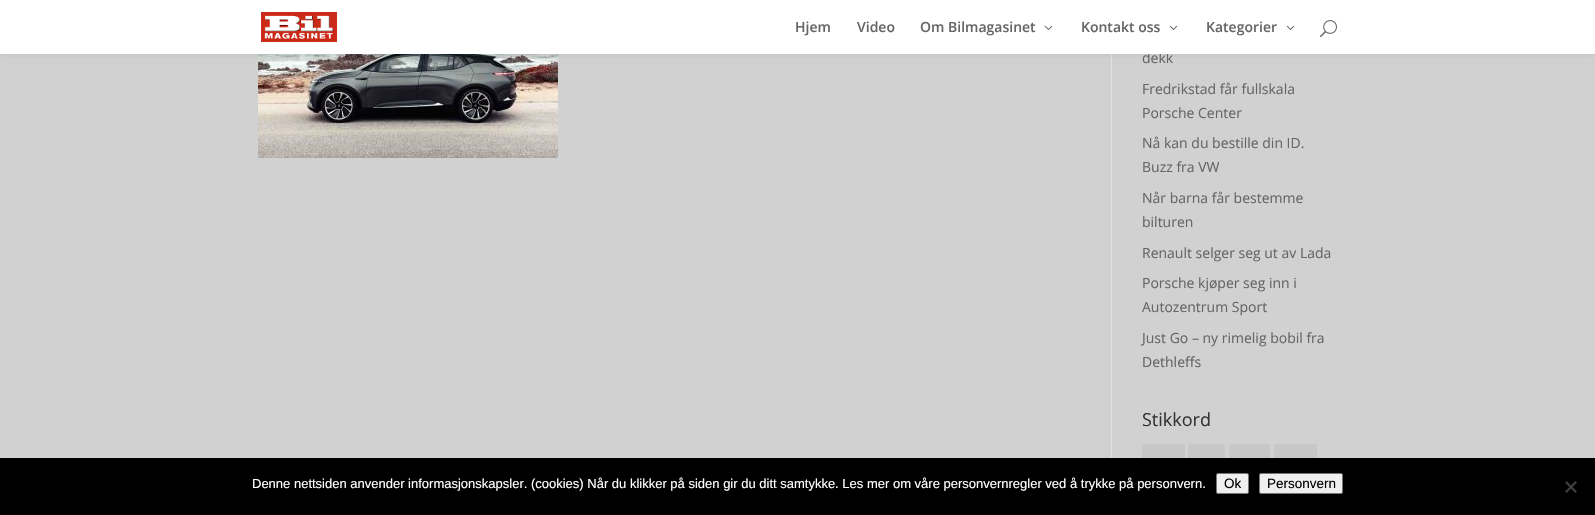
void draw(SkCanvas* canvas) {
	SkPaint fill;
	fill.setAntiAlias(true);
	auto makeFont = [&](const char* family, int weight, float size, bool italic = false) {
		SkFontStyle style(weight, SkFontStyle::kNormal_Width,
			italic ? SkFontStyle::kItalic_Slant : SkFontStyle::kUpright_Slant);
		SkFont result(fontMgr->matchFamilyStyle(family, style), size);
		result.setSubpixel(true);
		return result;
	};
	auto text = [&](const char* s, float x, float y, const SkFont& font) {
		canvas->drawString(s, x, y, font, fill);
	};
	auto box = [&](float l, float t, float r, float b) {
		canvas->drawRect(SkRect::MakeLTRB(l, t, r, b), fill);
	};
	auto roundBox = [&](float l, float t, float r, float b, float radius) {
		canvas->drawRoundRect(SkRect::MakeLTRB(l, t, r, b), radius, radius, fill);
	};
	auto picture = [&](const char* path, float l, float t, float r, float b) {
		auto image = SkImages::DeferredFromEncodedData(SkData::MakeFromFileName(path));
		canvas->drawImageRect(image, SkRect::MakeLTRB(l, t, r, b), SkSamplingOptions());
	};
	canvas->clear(0xFFD1D1D1);
	fill.setColor(0xFFE2E2E2);
	box(1111, 54, 1112, 458);
	picture("image3.png", 258, 54, 558, 158);
	fill.setColor(0x1A000000);
	fill.setMaskFilter(SkMaskFilter::MakeBlur(kNormal_SkBlurStyle, 3.5f));
	canvas->drawRect(SkRect::MakeLTRB(0, 0, 1595, 54), fill);
	fill.setMaskFilter(nullptr);
	fill.setColor(0xFFC7C7C7);
	roundBox(1142, 444, 1185, 472, 3);
	roundBox(1188, 444, 1225, 472, 3);
	roundBox(1229, 444, 1270, 472, 3);
	roundBox(1274, 444, 1317, 472, 3);
	fill.setColor(0xFF000000);
	box(0, 458, 1595, 515);
	fill.setColor(0xFFEFEFEF);
	canvas->drawRoundRect(SkRect::MakeLTRB(1216.5f, 473.5f, 1248.5f, 493.5f), 1.5f, 1.5f, fill);
	fill.setStyle(SkPaint::kStroke_Style);
	fill.setStrokeWidth(1);
	fill.setColor(0xFF767676);
	canvas->drawRoundRect(SkRect::MakeLTRB(1216.5f, 473.5f, 1248.5f, 493.5f), 1.5f, 1.5f, fill);
	fill.setStyle(SkPaint::kFill_Style);
	fill.setColor(0xFFEFEFEF);
	canvas->drawRoundRect(SkRect::MakeLTRB(1259.5f, 473.5f, 1342.5f, 493.5f), 1.5f, 1.5f, fill);
	fill.setStyle(SkPaint::kStroke_Style);
	fill.setColor(0xFF767676);
	canvas->drawRoundRect(SkRect::MakeLTRB(1259.5f, 473.5f, 1342.5f, 493.5f), 1.5f, 1.5f, fill);
	fill.setStyle(SkPaint::kFill_Style);
	fill.setColor(0xFF404040);
	canvas->drawPath(SkPathBuilder().moveTo(1575.5f, 481).lineTo(1577, 482.5f).lineTo(1566.5f, 493).lineTo(1565, 491.5f).close().detach(), fill);
	canvas->drawPath(SkPathBuilder().moveTo(1565, 482.5f).lineTo(1566.5f, 481).lineTo(1577, 491.5f).lineTo(1575.5f, 493).close().detach(), fill);
	auto font1 = makeFont("Open Sans", 400, 14);
	fill.setColor(0xFF666666);
	text("dekk", 1142, 63, font1);
	fill.setColor(0xFFFFFFFF);
	box(0, 0, 1595, 54);
	picture("image2.png", 1320, 20, 1337, 38);
	picture("image1.png", 1286, 25, 1295, 30);
	auto font2 = makeFont("Open Sans", 600, 14);
	fill.setColor(0xFF666666);
	text("Kategorier", 1206, 32, font2);
	picture("image1.png", 1169, 25, 1178, 30);
	text("Kontakt oss", 1081, 32, font2);
	picture("image1.png", 1044, 25, 1053, 30);
	text("Om Bilmagasinet", 920, 32, font2);
	text("Video", 857, 32, font2);
	text("Hjem", 795, 32, font2);
	picture("image0.png", 261, 12, 337, 42);
	text("Fredrikstad får fullskala", 1142, 94, font1);
	text("Porsche Center", 1142, 118, font1);
	text("Nå kan du bestille din ID.", 1142, 148, font1);
	text("Buzz fra VW", 1142, 172, font1);
	text("Når barna får bestemme", 1142, 203, font1);
	text("bilturen", 1142, 227, font1);
	text("Renault selger seg ut av Lada", 1142, 258, font1);
	text("Porsche kjøper seg inn i", 1142, 288, font1);
	text("Autozentrum Sport", 1142, 312, font1);
	text("Just Go – ny rimelig bobil fra", 1142, 343, font1);
	text("Dethleffs", 1142, 367, font1);
	auto font3 = makeFont("Open Sans", 400, 18);
	fill.setColor(0xFF333333);
	text("Stikkord", 1142, 426, font3);
	auto font4 = makeFont("Liberation Sans", 400, 13);
	fill.setColor(0xFFFFFFFF);
	text("Denne nettsiden anvender informasjonskapsler. (cookies) Når du klikker på siden gir du ditt samtykke. Les mer om våre personvernregler ved å trykke på personvern.", 252, 488, font4);
	auto font5 = makeFont("Liberation Sans", 400, 13.5f);
	fill.setColor(0xFF000000);
	text("Ok", 1224, 488, font5);
	text("Personvern", 1267, 488, font5);
}
